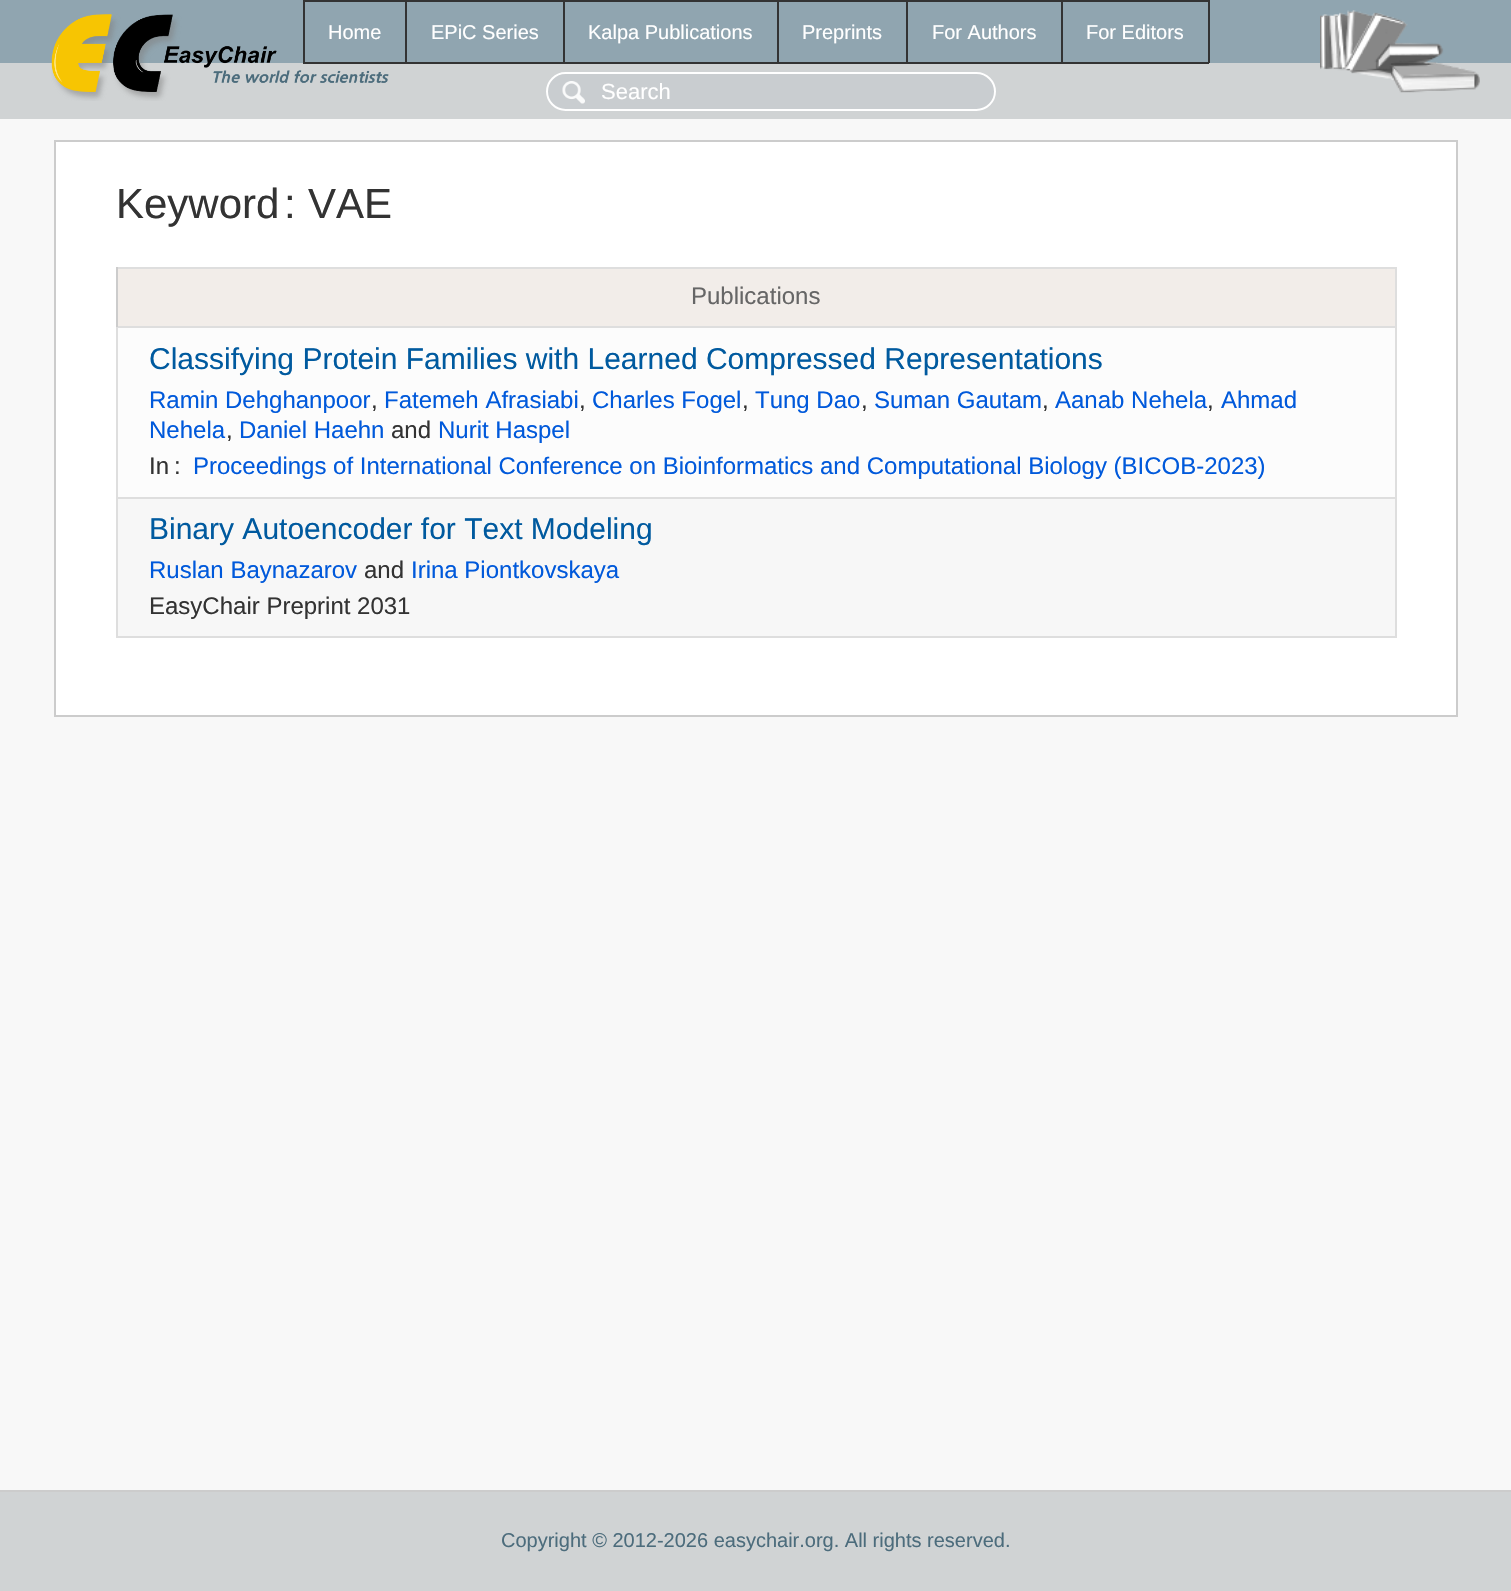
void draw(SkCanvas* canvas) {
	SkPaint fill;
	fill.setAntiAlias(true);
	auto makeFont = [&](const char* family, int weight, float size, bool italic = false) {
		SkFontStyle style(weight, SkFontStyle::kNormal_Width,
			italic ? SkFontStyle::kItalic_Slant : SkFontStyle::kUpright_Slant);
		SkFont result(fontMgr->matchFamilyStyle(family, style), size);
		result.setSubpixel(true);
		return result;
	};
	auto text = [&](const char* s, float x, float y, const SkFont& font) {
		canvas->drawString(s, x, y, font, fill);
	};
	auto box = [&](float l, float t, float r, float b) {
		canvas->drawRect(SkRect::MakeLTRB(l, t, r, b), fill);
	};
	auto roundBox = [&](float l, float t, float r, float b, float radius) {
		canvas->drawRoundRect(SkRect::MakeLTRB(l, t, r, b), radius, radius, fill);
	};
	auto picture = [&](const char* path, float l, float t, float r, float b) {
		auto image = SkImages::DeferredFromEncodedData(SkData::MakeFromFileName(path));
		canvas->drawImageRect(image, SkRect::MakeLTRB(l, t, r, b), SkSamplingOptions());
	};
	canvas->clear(0xFF90A5B0);
	fill.setColor(0xFFD0D3D4);
	box(0, 63, 1511, 119);
	picture("image0.png", 51, 14, 389, 101);
	fill.setColor(0xFF333333);
	box(1061, 0, 1209, 2);
	box(1208, 0, 1210, 63);
	box(1061, 62, 1209, 64);
	box(1061, 0, 1063, 63);
	box(906, 0, 1062, 2);
	box(906, 62, 1062, 64);
	box(906, 0, 908, 63);
	box(777, 0, 908, 2);
	box(777, 62, 908, 64);
	box(777, 0, 779, 63);
	box(563, 0, 779, 2);
	box(563, 62, 779, 64);
	box(563, 0, 565, 63);
	box(405, 0, 564, 2);
	box(405, 62, 564, 64);
	box(405, 0, 407, 63);
	box(303, 0, 407, 2);
	box(303, 62, 407, 64);
	box(303, 0, 305, 63);
	picture("image1.png", 1320, 10, 1480, 93);
	fill.setColor(0xFFC9CDD0);
	roundBox(546, 72, 996, 111, 19.5f);
	picture("image2.png", 562, 81, 585, 104);
	fill.setStyle(SkPaint::kStroke_Style);
	fill.setStrokeWidth(2);
	fill.setColor(0xFFFFFFFF);
	canvas->drawRoundRect(SkRect::MakeLTRB(547, 73, 995, 110), 18.5f, 18.5f, fill);
	fill.setStyle(SkPaint::kFill_Style);
	fill.setColor(0xFFF8F8F8);
	box(0, 119, 1511, 1490);
	fill.setColor(0xFFFFFFFF);
	canvas->drawRect(SkRect::MakeLTRB(55, 141, 1457, 716), fill);
	fill.setStyle(SkPaint::kStroke_Style);
	fill.setColor(0xFFCCCCCC);
	canvas->drawRect(SkRect::MakeLTRB(55, 141, 1457, 716), fill);
	fill.setStyle(SkPaint::kFill_Style);
	fill.setColor(0xFFDEDEDE);
	box(116, 267, 1397, 269);
	box(1395, 267, 1397, 638);
	box(116, 636, 1397, 638);
	box(116, 328, 118, 638);
	fill.setColor(0xFFF2EDE9);
	box(118, 269, 1395, 326);
	fill.setColor(0xFFDEDEDE);
	box(116, 326, 1397, 328);
	fill.setColor(0xFFCCCCCC);
	box(116, 267, 118, 327);
	fill.setColor(0xFFFCFCFC);
	box(118, 328, 1395, 497);
	fill.setColor(0xFFDEDEDE);
	box(116, 497, 1397, 499);
	fill.setColor(0xFFF7F7F7);
	box(118, 499, 1395, 636);
	fill.setColor(0xFFD0D3D4);
	box(0, 1492, 1511, 1591);
	fill.setColor(0xFFCCCCCC);
	box(0, 1490, 1511, 1492);
	auto font1 = makeFont("Liberation Sans", 400, 20);
	fill.setColor(0xFFFFFFFF);
	text("Home", 328, 39, font1);
	text("EPiC Series", 431, 39, font1);
	text("Kalpa Publications", 588, 39, font1);
	text("Preprints", 802, 39, font1);
	text("For Authors", 932, 39, font1);
	text("For Editors", 1086, 39, font1);
	auto font2 = makeFont("Liberation Sans", 400, 22);
	text("Search", 601, 99, font2);
	auto font3 = makeFont("Liberation Sans", 400, 42);
	fill.setColor(0xFF333333);
	text("Keyword", 116, 218, font3);
	text(":", 284, 218, font3);
	text("VAE", 308, 218, font3);
	auto font4 = makeFont("Liberation Sans", 400, 24);
	fill.setColor(0xFF666666);
	text("Publications", 691, 304, font4);
	auto font5 = makeFont("Liberation Sans", 400, 30);
	fill.setColor(0xFF005A9F);
	text("Classifying Protein Families with Learned Compressed Representations", 149, 369, font5);
	fill.setColor(0xFF0059DB);
	text("Ramin Dehghanpoor", 149, 408, font4);
	fill.setColor(0xFF333333);
	text(",", 371, 408, font4);
	fill.setColor(0xFF0059DB);
	text("Fatemeh Afrasiabi", 384, 408, font4);
	fill.setColor(0xFF333333);
	text(",", 579, 408, font4);
	fill.setColor(0xFF0059DB);
	text("Charles Fogel", 592, 408, font4);
	fill.setColor(0xFF333333);
	text(",", 742, 408, font4);
	fill.setColor(0xFF0059DB);
	text("Tung Dao", 755, 408, font4);
	fill.setColor(0xFF333333);
	text(",", 861, 408, font4);
	fill.setColor(0xFF0059DB);
	text("Suman Gautam", 874, 408, font4);
	fill.setColor(0xFF333333);
	text(",", 1042, 408, font4);
	fill.setColor(0xFF0059DB);
	text("Aanab Nehela", 1055, 408, font4);
	fill.setColor(0xFF333333);
	text(",", 1207, 408, font4);
	fill.setColor(0xFF0059DB);
	text("Ahmad", 1221, 408, font4);
	text("Nehela", 149, 438, font4);
	fill.setColor(0xFF333333);
	text(",", 226, 438, font4);
	fill.setColor(0xFF0059DB);
	text("Daniel Haehn", 239, 438, font4);
	fill.setColor(0xFF333333);
	text("and", 391, 438, font4);
	fill.setColor(0xFF0059DB);
	text("Nurit Haspel", 438, 438, font4);
	fill.setColor(0xFF333333);
	text("In", 149, 474, font4);
	text(":", 174, 474, font4);
	fill.setColor(0xFF0059DB);
	text("Proceedings of International Conference on Bioinformatics and Computational Biology (BICOB-2023)", 193, 474, font4);
	fill.setColor(0xFF005A9F);
	text("Binary Autoencoder for Text Modeling", 149, 539, font5);
	fill.setColor(0xFF0059DB);
	text("Ruslan Baynazarov", 149, 578, font4);
	fill.setColor(0xFF333333);
	text("and", 364, 578, font4);
	fill.setColor(0xFF0059DB);
	text("Irina Piontkovskaya", 411, 578, font4);
	fill.setColor(0xFF333333);
	text("EasyChair Preprint 2031", 149, 614, font4);
	fill.setColor(0xFF4C6C7C);
	text("Copyright © 2012-2026 easychair.org. All rights reserved.", 501, 1547, font1);
}
